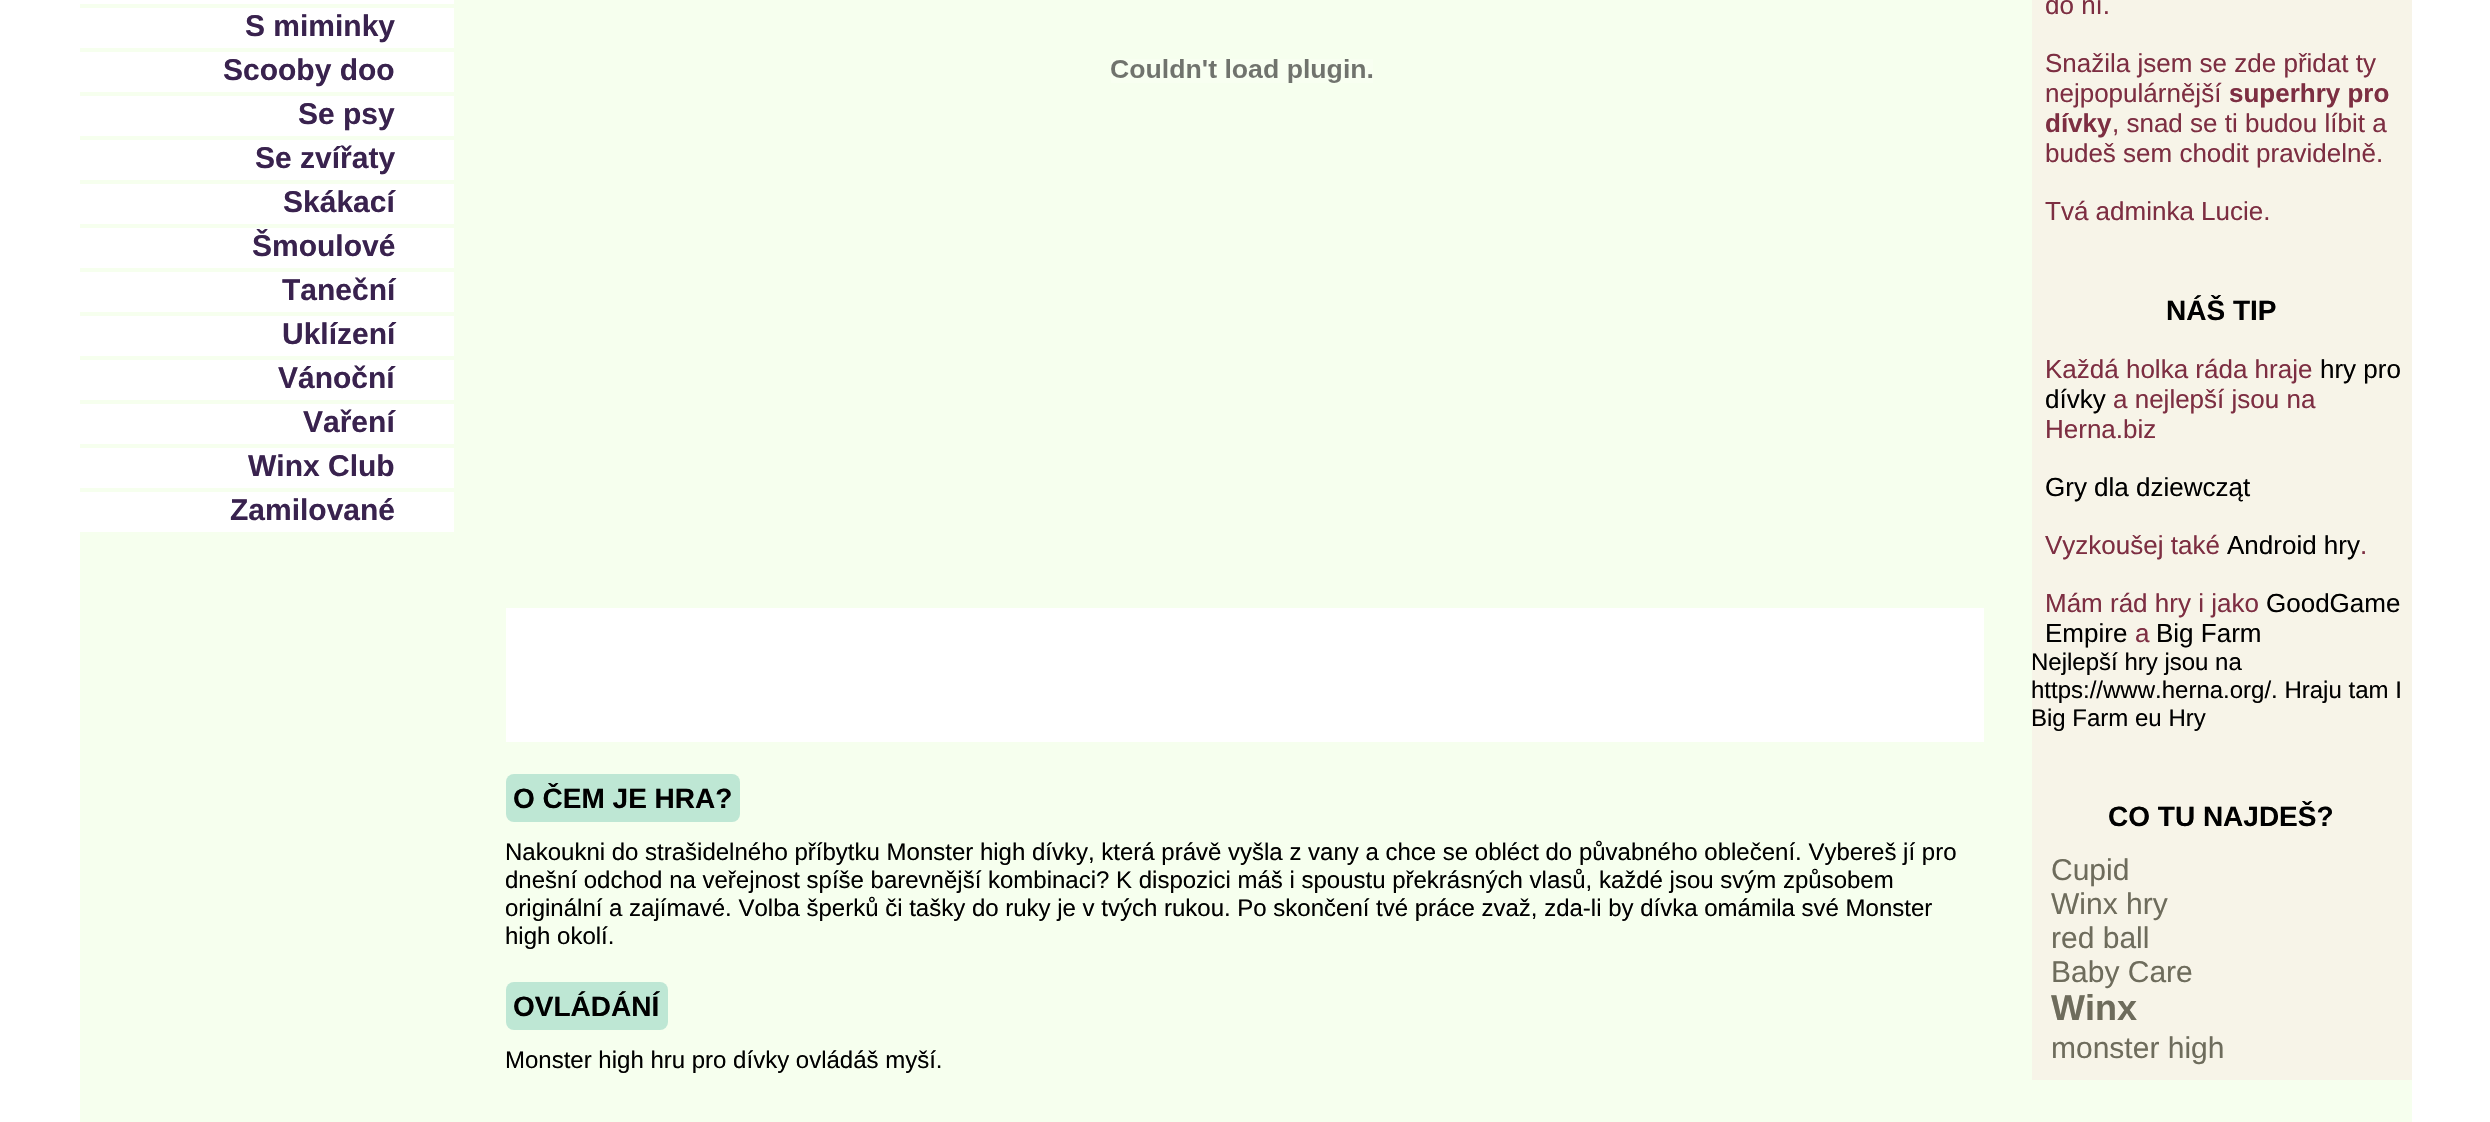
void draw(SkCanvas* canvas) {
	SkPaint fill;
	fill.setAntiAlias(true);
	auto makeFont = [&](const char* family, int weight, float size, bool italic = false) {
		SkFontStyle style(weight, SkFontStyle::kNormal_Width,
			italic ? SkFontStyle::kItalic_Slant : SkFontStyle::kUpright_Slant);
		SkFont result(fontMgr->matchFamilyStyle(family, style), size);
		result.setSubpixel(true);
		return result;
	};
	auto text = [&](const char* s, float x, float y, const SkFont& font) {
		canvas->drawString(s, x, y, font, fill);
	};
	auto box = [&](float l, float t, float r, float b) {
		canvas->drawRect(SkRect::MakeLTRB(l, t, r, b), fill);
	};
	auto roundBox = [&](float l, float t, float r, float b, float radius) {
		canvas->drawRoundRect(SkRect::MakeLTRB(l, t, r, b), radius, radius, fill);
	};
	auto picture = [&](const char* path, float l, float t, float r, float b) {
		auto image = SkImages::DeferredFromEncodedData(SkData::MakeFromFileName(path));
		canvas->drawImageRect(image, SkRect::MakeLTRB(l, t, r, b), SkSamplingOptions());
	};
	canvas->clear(0xFFFFFFFF);
	fill.setColor(0xFFF6FFEE);
	box(80, 0, 2412, 1122);
	fill.setColor(0xFFFFFFFF);
	box(80, 0, 454, 4);
	box(80, 8, 454, 48);
	box(80, 52, 454, 92);
	box(80, 96, 454, 136);
	box(80, 140, 454, 180);
	box(80, 184, 454, 224);
	box(80, 228, 454, 268);
	box(80, 272, 454, 312);
	box(80, 316, 454, 356);
	box(80, 360, 454, 400);
	box(80, 404, 454, 444);
	box(80, 448, 454, 488);
	box(80, 492, 454, 532);
	fill.setColor(0xFFF7F4E8);
	box(2032, 0, 2412, 1080);
	picture("image0.png", 1111, 59, 1373, 83);
	fill.setColor(0xFFFFFFFF);
	box(506, 608, 1984, 742);
	fill.setColor(0xFFBEE7D4);
	roundBox(506, 774, 740, 822, 8);
	roundBox(506, 982, 668, 1030, 8);
	auto font1 = makeFont("Liberation Sans", 700, 30);
	fill.setColor(0xFF39224E);
	text("S miminky", 245, 36, font1);
	text("Scooby doo", 223, 80, font1);
	text("Se psy", 298, 124, font1);
	text("Se zvířaty", 255, 168, font1);
	text("Skákací", 283, 212, font1);
	text("Šmoulové", 252, 256, font1);
	text("Taneční", 282, 300, font1);
	text("Uklízení", 282, 344, font1);
	text("Vánoční", 278, 388, font1);
	text("Vaření", 303, 432, font1);
	text("Winx Club", 248, 476, font1);
	text("Zamilované", 230, 520, font1);
	auto font2 = makeFont("Liberation Sans", 400, 26);
	fill.setColor(0xFF7D2E42);
	text("do ní.", 2045, 14, font2);
	text("Snažila jsem se zde přidat ty", 2045, 72, font2);
	text("nejpopulárnější", 2045, 102, font2);
	auto font3 = makeFont("Liberation Sans", 700, 26);
	text("superhry pro", 2229, 102, font3);
	text("dívky", 2045, 132, font3);
	text(", snad se ti budou líbit a", 2112, 132, font2);
	text("budeš sem chodit pravidelně.", 2045, 162, font2);
	text("Tvá adminka Lucie.", 2045, 220, font2);
	auto font4 = makeFont("Liberation Sans", 700, 28);
	fill.setColor(0xFF000000);
	text("NÁŠ TIP", 2166, 320, font4);
	fill.setColor(0xFF7D2E42);
	text("Každá holka ráda hraje", 2045, 378, font2);
	fill.setColor(0xFF000000);
	text("hry pro", 2320, 378, font2);
	text("dívky", 2045, 408, font2);
	fill.setColor(0xFF7D2E42);
	text("a nejlepší jsou na", 2113, 408, font2);
	text("Herna.biz", 2045, 438, font2);
	fill.setColor(0xFF000000);
	text("Gry dla dziewcząt", 2045, 496, font2);
	fill.setColor(0xFF7D2E42);
	text("Vyzkoušej také", 2045, 554, font2);
	fill.setColor(0xFF000000);
	text("Android hry", 2227, 554, font2);
	fill.setColor(0xFF7D2E42);
	text(".", 2360, 554, font2);
	text("Mám rád hry i jako", 2045, 612, font2);
	fill.setColor(0xFF000000);
	text("GoodGame", 2266, 612, font2);
	text("Empire", 2045, 642, font2);
	fill.setColor(0xFF7D2E42);
	text("a", 2135, 642, font2);
	fill.setColor(0xFF000000);
	text("Big Farm", 2156, 642, font2);
	auto font5 = makeFont("Liberation Sans", 400, 24);
	text("Nejlepší hry jsou na", 2031, 670, font5);
	text("https://www.herna.org/. Hraju tam I", 2031, 698, font5);
	text("Big Farm eu Hry", 2031, 726, font5);
	text("CO TU NAJDEŠ?", 2108, 826, font4);
	auto font6 = makeFont("Liberation Sans", 400, 30);
	fill.setColor(0xFF6E6C5C);
	text("Cupid", 2051, 880, font6);
	text("Winx hry", 2051, 914, font6);
	text("red ball", 2051, 948, font6);
	text("Baby Care", 2051, 982, font6);
	auto font7 = makeFont("Liberation Sans", 700, 36);
	text("Winx", 2051, 1020, font7);
	text("monster high", 2051, 1058, font6);
	fill.setColor(0xFF000000);
	text("O ČEM JE HRA?", 513, 808, font4);
	text("Nakoukni do strašidelného příbytku Monster high dívky, která právě vyšla z vany a chce se obléct do půvabného oblečení. Vybereš jí pro", 505, 860, font5);
	text("dnešní odchod na veřejnost spíše barevnější kombinaci? K dispozici máš i spoustu překrásných vlasů, každé jsou svým způsobem", 505, 888, font5);
	text("originální a zajímavé. Volba šperků či tašky do ruky je v tvých rukou. Po skončení tvé práce zvaž, zda-li by dívka omámila své Monster", 505, 916, font5);
	text("high okolí.", 505, 944, font5);
	text("OVLÁDÁNÍ", 513, 1016, font4);
	text("Monster high hru pro dívky ovládáš myší.", 505, 1068, font5);
}
